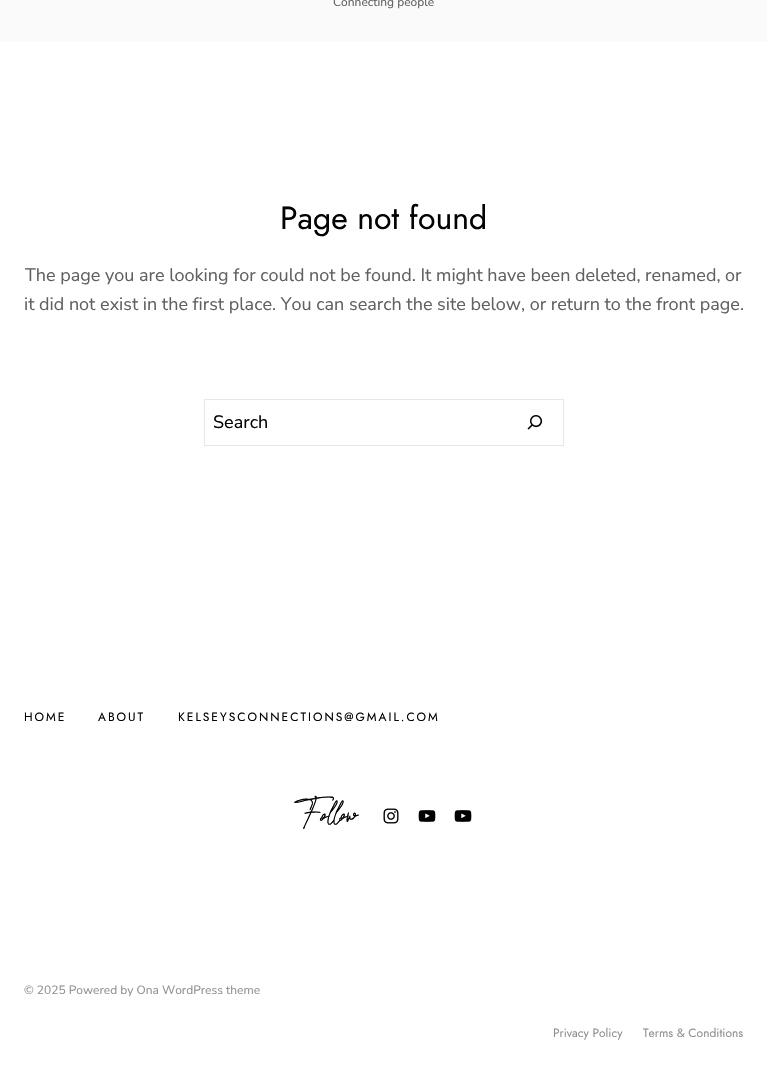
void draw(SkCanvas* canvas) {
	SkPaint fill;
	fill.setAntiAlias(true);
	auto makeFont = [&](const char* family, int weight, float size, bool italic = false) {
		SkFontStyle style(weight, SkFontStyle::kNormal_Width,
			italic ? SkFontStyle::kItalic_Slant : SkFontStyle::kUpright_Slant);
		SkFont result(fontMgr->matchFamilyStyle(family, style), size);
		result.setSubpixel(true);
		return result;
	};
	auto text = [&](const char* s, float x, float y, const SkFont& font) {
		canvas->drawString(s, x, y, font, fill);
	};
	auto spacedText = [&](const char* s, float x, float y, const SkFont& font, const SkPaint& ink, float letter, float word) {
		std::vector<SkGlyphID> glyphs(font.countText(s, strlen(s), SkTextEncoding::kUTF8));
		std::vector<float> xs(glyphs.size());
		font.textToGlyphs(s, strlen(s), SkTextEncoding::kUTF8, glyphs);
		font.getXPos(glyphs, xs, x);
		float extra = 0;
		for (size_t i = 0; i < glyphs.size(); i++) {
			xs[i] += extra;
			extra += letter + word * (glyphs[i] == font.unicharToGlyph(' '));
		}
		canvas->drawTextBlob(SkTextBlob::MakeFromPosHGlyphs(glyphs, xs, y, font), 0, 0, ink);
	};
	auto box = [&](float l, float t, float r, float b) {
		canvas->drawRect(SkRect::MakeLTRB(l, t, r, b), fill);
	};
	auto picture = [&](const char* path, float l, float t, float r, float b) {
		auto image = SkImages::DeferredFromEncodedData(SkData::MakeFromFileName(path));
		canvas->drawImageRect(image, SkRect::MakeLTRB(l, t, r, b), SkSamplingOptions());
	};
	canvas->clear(0xFFFFFFFF);
	fill.setColor(0xFFFBFAFA);
	box(0, 0, 767, 42);
	fill.setStyle(SkPaint::kStroke_Style);
	fill.setStrokeWidth(1);
	fill.setColor(0xFFE7E7E7);
	canvas->drawRect(SkRect::MakeLTRB(204.5f, 399.5f, 563.5f, 445.5f), fill);
	picture("image0.png", 527, 415, 543, 430);
	picture("image1.png", 383, 808, 399, 824);
	picture("image2.png", 418, 810, 436, 822);
	picture("image2.png", 454, 810, 472, 822);
	auto font1 = makeFont("Nunito Sans", 400, 12);
	fill.setStyle(SkPaint::kFill_Style);
	fill.setColor(0xFF606060);
	text("Connecting people", 333, 6, font1);
	auto font2 = makeFont("Jost", 400, 32);
	fill.setColor(0xFF020202);
	text("Page not found", 280, 229, font2);
	auto font3 = makeFont("Nunito Sans", 400, 18);
	fill.setColor(0xFF606060);
	text("The page you are looking for could not be found. It might have been deleted, renamed, or", 25, 281, font3);
	text("it did not exist in the first place. You can search the site below, or return to the front page.", 24, 310, font3);
	fill.setColor(0xFF020202);
	text("Search", 213, 428, font3);
	auto font4 = makeFont("Jost", 400, 12);
	spacedText("HOME", 24, 721, font4, fill, 2, 0);
	spacedText("ABOUT", 98, 721, font4, fill, 2, 0);
	spacedText("KELSEYSCONNECTIONS@GMAIL.COM", 178, 721, font4, fill, 2, 0);
	auto font5 = makeFont("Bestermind", 400, 28);
	text("Follow", 294, 825, font5);
	fill.setColor(0xFF909090);
	text("© 2025 Powered by Ona WordPress theme", 24, 994, font1);
	text("Privacy Policy", 553, 1037, font4);
	text("Terms & Conditions", 643, 1037, font4);
}
